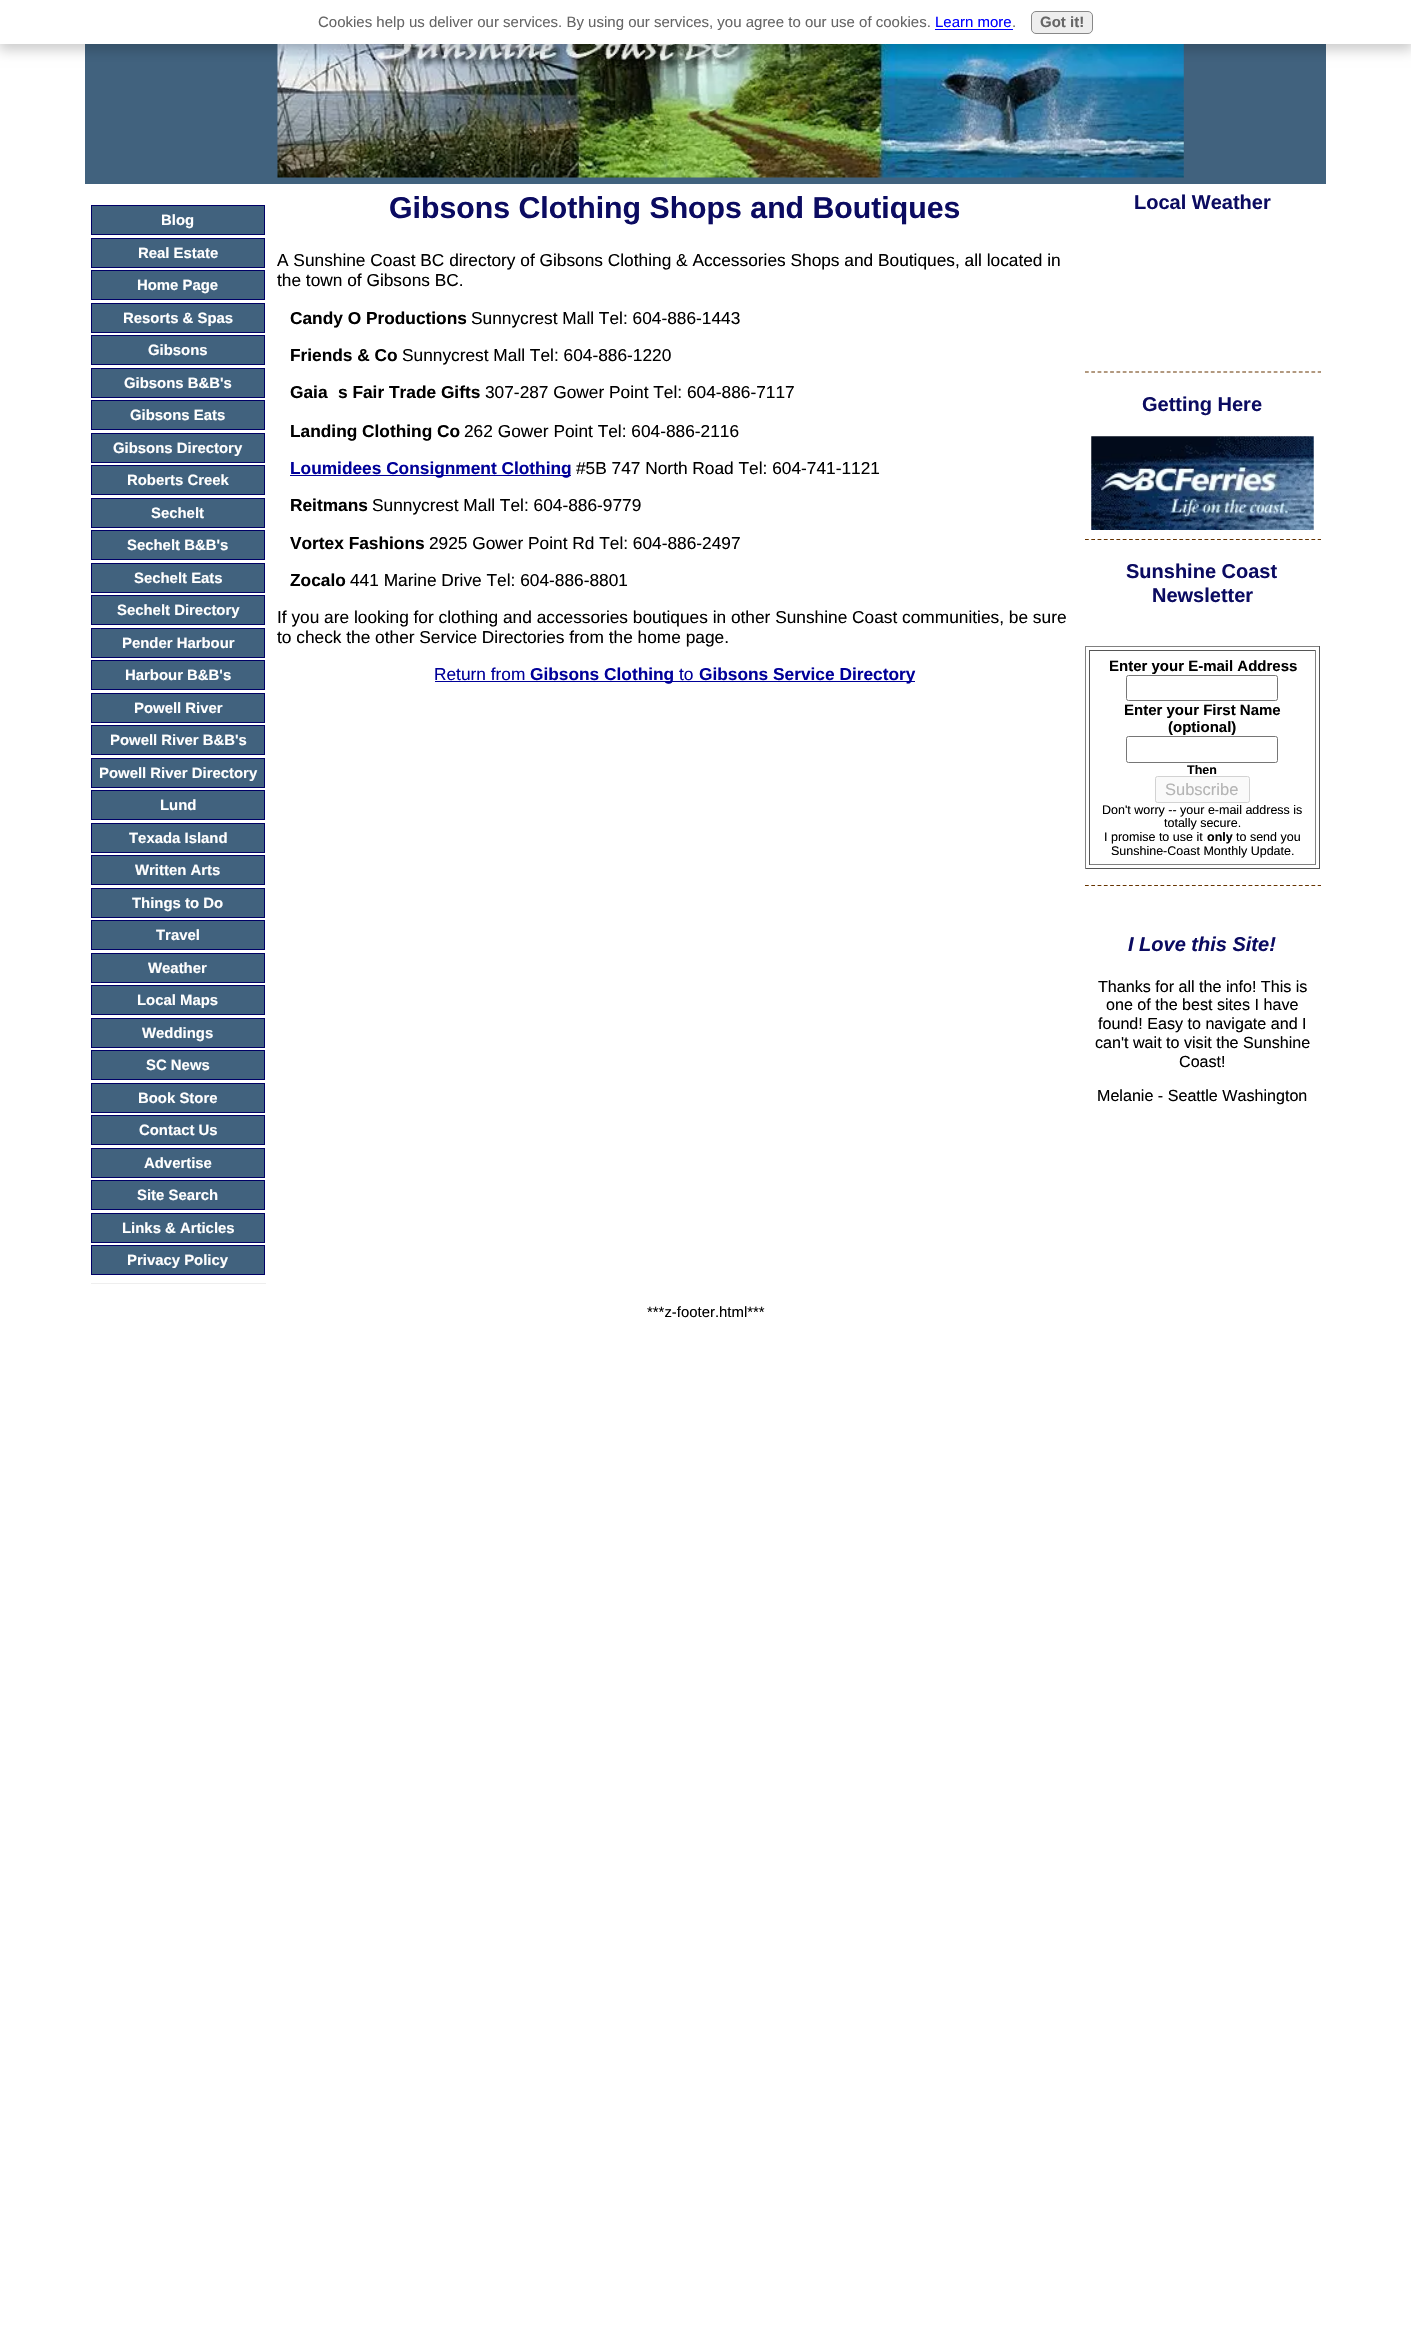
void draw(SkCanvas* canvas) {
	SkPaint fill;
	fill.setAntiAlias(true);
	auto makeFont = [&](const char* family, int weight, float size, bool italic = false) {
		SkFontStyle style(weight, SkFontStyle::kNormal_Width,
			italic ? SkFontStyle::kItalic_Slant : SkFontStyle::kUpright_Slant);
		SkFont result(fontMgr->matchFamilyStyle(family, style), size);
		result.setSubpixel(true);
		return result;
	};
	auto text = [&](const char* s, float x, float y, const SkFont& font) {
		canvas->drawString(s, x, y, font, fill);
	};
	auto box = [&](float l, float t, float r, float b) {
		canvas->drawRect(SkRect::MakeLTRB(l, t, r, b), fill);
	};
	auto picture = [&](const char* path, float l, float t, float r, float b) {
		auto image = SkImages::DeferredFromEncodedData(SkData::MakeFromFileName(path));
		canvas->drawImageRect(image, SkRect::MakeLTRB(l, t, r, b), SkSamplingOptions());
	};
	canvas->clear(0xFFFFFFFF);
	fill.setColor(0xFF41627E);
	box(85, 44, 1326, 184);
	picture("image0.png", 277, 44, 1184, 178);
	fill.setColor(0x33000000);
	fill.setMaskFilter(SkMaskFilter::MakeBlur(kNormal_SkBlurStyle, 6));
	canvas->drawRect(SkRect::MakeLTRB(-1, 4, 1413, 50), fill);
	fill.setMaskFilter(nullptr);
	fill.setColor(0xFFFFFFFF);
	box(0, 0, 1411, 44);
	fill.setColor(0xFF0000FF);
	box(935, 29, 1013, 30);
	fill.setColor(0xFFEEEEEE);
	canvas->drawRoundRect(SkRect::MakeLTRB(1031.5f, 11.5f, 1092.5f, 33.5f), 4.5f, 4.5f, fill);
	fill.setStyle(SkPaint::kStroke_Style);
	fill.setStrokeWidth(1);
	fill.setColor(0xFF888888);
	canvas->drawRoundRect(SkRect::MakeLTRB(1031.5f, 11.5f, 1092.5f, 33.5f), 4.5f, 4.5f, fill);
	fill.setStyle(SkPaint::kFill_Style);
	fill.setColor(0xFF41627E);
	canvas->drawRect(SkRect::MakeLTRB(91.5f, 205.5f, 264.5f, 234.5f), fill);
	fill.setStyle(SkPaint::kStroke_Style);
	fill.setColor(0xFF000066);
	canvas->drawRect(SkRect::MakeLTRB(91.5f, 205.5f, 264.5f, 234.5f), fill);
	fill.setStyle(SkPaint::kFill_Style);
	fill.setColor(0xFF41627E);
	canvas->drawRect(SkRect::MakeLTRB(91.5f, 238.5f, 264.5f, 267.5f), fill);
	fill.setStyle(SkPaint::kStroke_Style);
	fill.setColor(0xFF000066);
	canvas->drawRect(SkRect::MakeLTRB(91.5f, 238.5f, 264.5f, 267.5f), fill);
	fill.setStyle(SkPaint::kFill_Style);
	fill.setColor(0xFF41627E);
	canvas->drawRect(SkRect::MakeLTRB(91.5f, 270.5f, 264.5f, 299.5f), fill);
	fill.setStyle(SkPaint::kStroke_Style);
	fill.setColor(0xFF000066);
	canvas->drawRect(SkRect::MakeLTRB(91.5f, 270.5f, 264.5f, 299.5f), fill);
	fill.setStyle(SkPaint::kFill_Style);
	fill.setColor(0xFF41627E);
	canvas->drawRect(SkRect::MakeLTRB(91.5f, 303.5f, 264.5f, 332.5f), fill);
	fill.setStyle(SkPaint::kStroke_Style);
	fill.setColor(0xFF000066);
	canvas->drawRect(SkRect::MakeLTRB(91.5f, 303.5f, 264.5f, 332.5f), fill);
	fill.setStyle(SkPaint::kFill_Style);
	fill.setColor(0xFF41627E);
	canvas->drawRect(SkRect::MakeLTRB(91.5f, 335.5f, 264.5f, 364.5f), fill);
	fill.setStyle(SkPaint::kStroke_Style);
	fill.setColor(0xFF000066);
	canvas->drawRect(SkRect::MakeLTRB(91.5f, 335.5f, 264.5f, 364.5f), fill);
	fill.setStyle(SkPaint::kFill_Style);
	fill.setColor(0xFF41627E);
	canvas->drawRect(SkRect::MakeLTRB(91.5f, 368.5f, 264.5f, 397.5f), fill);
	fill.setStyle(SkPaint::kStroke_Style);
	fill.setColor(0xFF000066);
	canvas->drawRect(SkRect::MakeLTRB(91.5f, 368.5f, 264.5f, 397.5f), fill);
	fill.setStyle(SkPaint::kFill_Style);
	fill.setColor(0xFF41627E);
	canvas->drawRect(SkRect::MakeLTRB(91.5f, 400.5f, 264.5f, 429.5f), fill);
	fill.setStyle(SkPaint::kStroke_Style);
	fill.setColor(0xFF000066);
	canvas->drawRect(SkRect::MakeLTRB(91.5f, 400.5f, 264.5f, 429.5f), fill);
	fill.setStyle(SkPaint::kFill_Style);
	fill.setColor(0xFF41627E);
	canvas->drawRect(SkRect::MakeLTRB(91.5f, 433.5f, 264.5f, 462.5f), fill);
	fill.setStyle(SkPaint::kStroke_Style);
	fill.setColor(0xFF000066);
	canvas->drawRect(SkRect::MakeLTRB(91.5f, 433.5f, 264.5f, 462.5f), fill);
	fill.setStyle(SkPaint::kFill_Style);
	fill.setColor(0xFF41627E);
	canvas->drawRect(SkRect::MakeLTRB(91.5f, 465.5f, 264.5f, 494.5f), fill);
	fill.setStyle(SkPaint::kStroke_Style);
	fill.setColor(0xFF000066);
	canvas->drawRect(SkRect::MakeLTRB(91.5f, 465.5f, 264.5f, 494.5f), fill);
	fill.setStyle(SkPaint::kFill_Style);
	fill.setColor(0xFF41627E);
	canvas->drawRect(SkRect::MakeLTRB(91.5f, 498.5f, 264.5f, 527.5f), fill);
	fill.setStyle(SkPaint::kStroke_Style);
	fill.setColor(0xFF000066);
	canvas->drawRect(SkRect::MakeLTRB(91.5f, 498.5f, 264.5f, 527.5f), fill);
	fill.setStyle(SkPaint::kFill_Style);
	fill.setColor(0xFF41627E);
	canvas->drawRect(SkRect::MakeLTRB(91.5f, 530.5f, 264.5f, 559.5f), fill);
	fill.setStyle(SkPaint::kStroke_Style);
	fill.setColor(0xFF000066);
	canvas->drawRect(SkRect::MakeLTRB(91.5f, 530.5f, 264.5f, 559.5f), fill);
	fill.setStyle(SkPaint::kFill_Style);
	fill.setColor(0xFF41627E);
	canvas->drawRect(SkRect::MakeLTRB(91.5f, 563.5f, 264.5f, 592.5f), fill);
	fill.setStyle(SkPaint::kStroke_Style);
	fill.setColor(0xFF000066);
	canvas->drawRect(SkRect::MakeLTRB(91.5f, 563.5f, 264.5f, 592.5f), fill);
	fill.setStyle(SkPaint::kFill_Style);
	fill.setColor(0xFF41627E);
	canvas->drawRect(SkRect::MakeLTRB(91.5f, 595.5f, 264.5f, 624.5f), fill);
	fill.setStyle(SkPaint::kStroke_Style);
	fill.setColor(0xFF000066);
	canvas->drawRect(SkRect::MakeLTRB(91.5f, 595.5f, 264.5f, 624.5f), fill);
	fill.setStyle(SkPaint::kFill_Style);
	fill.setColor(0xFF41627E);
	canvas->drawRect(SkRect::MakeLTRB(91.5f, 628.5f, 264.5f, 657.5f), fill);
	fill.setStyle(SkPaint::kStroke_Style);
	fill.setColor(0xFF000066);
	canvas->drawRect(SkRect::MakeLTRB(91.5f, 628.5f, 264.5f, 657.5f), fill);
	fill.setStyle(SkPaint::kFill_Style);
	fill.setColor(0xFF41627E);
	canvas->drawRect(SkRect::MakeLTRB(91.5f, 660.5f, 264.5f, 689.5f), fill);
	fill.setStyle(SkPaint::kStroke_Style);
	fill.setColor(0xFF000066);
	canvas->drawRect(SkRect::MakeLTRB(91.5f, 660.5f, 264.5f, 689.5f), fill);
	fill.setStyle(SkPaint::kFill_Style);
	fill.setColor(0xFF41627E);
	canvas->drawRect(SkRect::MakeLTRB(91.5f, 693.5f, 264.5f, 722.5f), fill);
	fill.setStyle(SkPaint::kStroke_Style);
	fill.setColor(0xFF000066);
	canvas->drawRect(SkRect::MakeLTRB(91.5f, 693.5f, 264.5f, 722.5f), fill);
	fill.setStyle(SkPaint::kFill_Style);
	fill.setColor(0xFF41627E);
	canvas->drawRect(SkRect::MakeLTRB(91.5f, 725.5f, 264.5f, 754.5f), fill);
	fill.setStyle(SkPaint::kStroke_Style);
	fill.setColor(0xFF000066);
	canvas->drawRect(SkRect::MakeLTRB(91.5f, 725.5f, 264.5f, 754.5f), fill);
	fill.setStyle(SkPaint::kFill_Style);
	fill.setColor(0xFF41627E);
	canvas->drawRect(SkRect::MakeLTRB(91.5f, 758.5f, 264.5f, 787.5f), fill);
	fill.setStyle(SkPaint::kStroke_Style);
	fill.setColor(0xFF000066);
	canvas->drawRect(SkRect::MakeLTRB(91.5f, 758.5f, 264.5f, 787.5f), fill);
	fill.setStyle(SkPaint::kFill_Style);
	fill.setColor(0xFF41627E);
	canvas->drawRect(SkRect::MakeLTRB(91.5f, 790.5f, 264.5f, 819.5f), fill);
	fill.setStyle(SkPaint::kStroke_Style);
	fill.setColor(0xFF000066);
	canvas->drawRect(SkRect::MakeLTRB(91.5f, 790.5f, 264.5f, 819.5f), fill);
	fill.setStyle(SkPaint::kFill_Style);
	fill.setColor(0xFF41627E);
	canvas->drawRect(SkRect::MakeLTRB(91.5f, 823.5f, 264.5f, 852.5f), fill);
	fill.setStyle(SkPaint::kStroke_Style);
	fill.setColor(0xFF000066);
	canvas->drawRect(SkRect::MakeLTRB(91.5f, 823.5f, 264.5f, 852.5f), fill);
	fill.setStyle(SkPaint::kFill_Style);
	fill.setColor(0xFF41627E);
	canvas->drawRect(SkRect::MakeLTRB(91.5f, 855.5f, 264.5f, 884.5f), fill);
	fill.setStyle(SkPaint::kStroke_Style);
	fill.setColor(0xFF000066);
	canvas->drawRect(SkRect::MakeLTRB(91.5f, 855.5f, 264.5f, 884.5f), fill);
	fill.setStyle(SkPaint::kFill_Style);
	fill.setColor(0xFF41627E);
	canvas->drawRect(SkRect::MakeLTRB(91.5f, 888.5f, 264.5f, 917.5f), fill);
	fill.setStyle(SkPaint::kStroke_Style);
	fill.setColor(0xFF000066);
	canvas->drawRect(SkRect::MakeLTRB(91.5f, 888.5f, 264.5f, 917.5f), fill);
	fill.setStyle(SkPaint::kFill_Style);
	fill.setColor(0xFF41627E);
	canvas->drawRect(SkRect::MakeLTRB(91.5f, 920.5f, 264.5f, 949.5f), fill);
	fill.setStyle(SkPaint::kStroke_Style);
	fill.setColor(0xFF000066);
	canvas->drawRect(SkRect::MakeLTRB(91.5f, 920.5f, 264.5f, 949.5f), fill);
	fill.setStyle(SkPaint::kFill_Style);
	fill.setColor(0xFF41627E);
	canvas->drawRect(SkRect::MakeLTRB(91.5f, 953.5f, 264.5f, 982.5f), fill);
	fill.setStyle(SkPaint::kStroke_Style);
	fill.setColor(0xFF000066);
	canvas->drawRect(SkRect::MakeLTRB(91.5f, 953.5f, 264.5f, 982.5f), fill);
	fill.setStyle(SkPaint::kFill_Style);
	fill.setColor(0xFF41627E);
	canvas->drawRect(SkRect::MakeLTRB(91.5f, 985.5f, 264.5f, 1014.5f), fill);
	fill.setStyle(SkPaint::kStroke_Style);
	fill.setColor(0xFF000066);
	canvas->drawRect(SkRect::MakeLTRB(91.5f, 985.5f, 264.5f, 1014.5f), fill);
	fill.setStyle(SkPaint::kFill_Style);
	fill.setColor(0xFF41627E);
	canvas->drawRect(SkRect::MakeLTRB(91.5f, 1018.5f, 264.5f, 1047.5f), fill);
	fill.setStyle(SkPaint::kStroke_Style);
	fill.setColor(0xFF000066);
	canvas->drawRect(SkRect::MakeLTRB(91.5f, 1018.5f, 264.5f, 1047.5f), fill);
	fill.setStyle(SkPaint::kFill_Style);
	fill.setColor(0xFF41627E);
	canvas->drawRect(SkRect::MakeLTRB(91.5f, 1050.5f, 264.5f, 1079.5f), fill);
	fill.setStyle(SkPaint::kStroke_Style);
	fill.setColor(0xFF000066);
	canvas->drawRect(SkRect::MakeLTRB(91.5f, 1050.5f, 264.5f, 1079.5f), fill);
	fill.setStyle(SkPaint::kFill_Style);
	fill.setColor(0xFF41627E);
	canvas->drawRect(SkRect::MakeLTRB(91.5f, 1083.5f, 264.5f, 1112.5f), fill);
	fill.setStyle(SkPaint::kStroke_Style);
	fill.setColor(0xFF000066);
	canvas->drawRect(SkRect::MakeLTRB(91.5f, 1083.5f, 264.5f, 1112.5f), fill);
	fill.setStyle(SkPaint::kFill_Style);
	fill.setColor(0xFF41627E);
	canvas->drawRect(SkRect::MakeLTRB(91.5f, 1115.5f, 264.5f, 1144.5f), fill);
	fill.setStyle(SkPaint::kStroke_Style);
	fill.setColor(0xFF000066);
	canvas->drawRect(SkRect::MakeLTRB(91.5f, 1115.5f, 264.5f, 1144.5f), fill);
	fill.setStyle(SkPaint::kFill_Style);
	fill.setColor(0xFF41627E);
	canvas->drawRect(SkRect::MakeLTRB(91.5f, 1148.5f, 264.5f, 1177.5f), fill);
	fill.setStyle(SkPaint::kStroke_Style);
	fill.setColor(0xFF000066);
	canvas->drawRect(SkRect::MakeLTRB(91.5f, 1148.5f, 264.5f, 1177.5f), fill);
	fill.setStyle(SkPaint::kFill_Style);
	fill.setColor(0xFF41627E);
	canvas->drawRect(SkRect::MakeLTRB(91.5f, 1180.5f, 264.5f, 1209.5f), fill);
	fill.setStyle(SkPaint::kStroke_Style);
	fill.setColor(0xFF000066);
	canvas->drawRect(SkRect::MakeLTRB(91.5f, 1180.5f, 264.5f, 1209.5f), fill);
	fill.setStyle(SkPaint::kFill_Style);
	fill.setColor(0xFF41627E);
	canvas->drawRect(SkRect::MakeLTRB(91.5f, 1213.5f, 264.5f, 1242.5f), fill);
	fill.setStyle(SkPaint::kStroke_Style);
	fill.setColor(0xFF000066);
	canvas->drawRect(SkRect::MakeLTRB(91.5f, 1213.5f, 264.5f, 1242.5f), fill);
	fill.setStyle(SkPaint::kFill_Style);
	fill.setColor(0xFF41627E);
	canvas->drawRect(SkRect::MakeLTRB(91.5f, 1245.5f, 264.5f, 1274.5f), fill);
	fill.setStyle(SkPaint::kStroke_Style);
	fill.setColor(0xFF000066);
	canvas->drawRect(SkRect::MakeLTRB(91.5f, 1245.5f, 264.5f, 1274.5f), fill);
	fill.setStyle(SkPaint::kFill_Style);
	fill.setColor(0xFFEEEEEE);
	box(91, 1283, 266, 1284);
	fill.setColor(0xFF000099);
	box(290, 475, 571, 476);
	box(435, 681, 915, 682);
	fill.setColor(0xFFEEEEEE);
	box(1320, 371, 1321, 372);
	fill.setStyle(SkPaint::kStroke_Style);
	fill.setStrokeWidth(1.2f);
	fill.setColor(0xFF663300);
	fill.setPathEffect(SkDashPathEffect::Make({{3.75f, 2.54f}}, 0));
	canvas->drawPath(SkPathBuilder().moveTo(1085, 372).lineTo(1321, 372).detach(), fill);
	fill.setPathEffect(nullptr);
	picture("image1.png", 1091, 436, 1314, 530);
	fill.setPathEffect(SkDashPathEffect::Make({{3.75f, 2.54f}}, 0));
	canvas->drawPath(SkPathBuilder().moveTo(1085, 539.5f).lineTo(1321, 539.5f).detach(), fill);
	fill.setPathEffect(nullptr);
	fill.setStyle(SkPaint::kFill_Style);
	fill.setColor(0xFF808080);
	box(1085, 646, 1320, 647);
	fill.setColor(0xFF555555);
	box(1319, 646, 1320, 869);
	box(1085, 868, 1320, 869);
	fill.setColor(0xFF808080);
	box(1085, 646, 1086, 869);
	fill.setColor(0xFF555555);
	box(1089, 650, 1316, 651);
	fill.setColor(0xFF808080);
	box(1315, 650, 1316, 865);
	box(1089, 864, 1316, 865);
	fill.setColor(0xFF555555);
	box(1089, 650, 1090, 865);
	fill.setStyle(SkPaint::kStroke_Style);
	fill.setStrokeWidth(1);
	fill.setColor(0xFF767676);
	canvas->drawRoundRect(SkRect::MakeLTRB(1126.5f, 675.5f, 1277.5f, 700.5f), 2, 2, fill);
	canvas->drawRoundRect(SkRect::MakeLTRB(1126.5f, 736.5f, 1277.5f, 762.5f), 2, 2, fill);
	fill.setStyle(SkPaint::kFill_Style);
	fill.setColor(0xFFFAFAFA);
	canvas->drawRoundRect(SkRect::MakeLTRB(1155.5f, 776.5f, 1249.5f, 802.5f), 2, 2, fill);
	fill.setStyle(SkPaint::kStroke_Style);
	fill.setColor(0xFFD2D2D2);
	canvas->drawRoundRect(SkRect::MakeLTRB(1155.5f, 776.5f, 1249.5f, 802.5f), 2, 2, fill);
	fill.setStrokeWidth(1.2f);
	fill.setColor(0xFF663300);
	fill.setPathEffect(SkDashPathEffect::Make({{3.75f, 2.54f}}, 0));
	canvas->drawPath(SkPathBuilder().moveTo(1085, 885.5f).lineTo(1321, 885.5f).detach(), fill);
	fill.setPathEffect(nullptr);
	auto font1 = makeFont("Liberation Sans", 400, 15);
	fill.setStyle(SkPaint::kFill_Style);
	fill.setColor(0xFF666666);
	text("Cookies help us deliver our services. By using our services, you agree to our use of cookies.", 318, 27, font1);
	fill.setColor(0xFF0000FF);
	text("Learn more", 935, 27, font1);
	fill.setColor(0xFF666666);
	text(".", 1012, 27, font1);
	auto font2 = makeFont("Liberation Sans", 700, 15);
	text("Got it!", 1040, 27, font2);
	auto font3 = makeFont("Liberation Sans", 700, 14.9f);
	fill.setColor(0xFFFFFFFF);
	text("Blog", 161, 225, font3);
	text("Real Estate", 138, 258, font3);
	text("Home Page", 137, 290, font3);
	text("Resorts & Spas", 123, 323, font3);
	text("Gibsons", 148, 355, font3);
	text("Gibsons B&B's", 124, 388, font3);
	text("Gibsons Eats", 130, 420, font3);
	text("Gibsons Directory", 113, 453, font3);
	text("Roberts Creek", 127, 485, font3);
	text("Sechelt", 151, 518, font3);
	text("Sechelt B&B's", 127, 550, font3);
	text("Sechelt Eats", 134, 583, font3);
	text("Sechelt Directory", 117, 615, font3);
	text("Pender Harbour", 122, 648, font3);
	text("Harbour B&B's", 125, 680, font3);
	text("Powell River", 134, 713, font3);
	text("Powell River B&B's", 110, 745, font3);
	text("Powell River Directory", 99, 778, font3);
	text("Lund", 160, 810, font3);
	text("Texada Island", 129, 843, font3);
	text("Written Arts", 135, 875, font3);
	text("Things to Do", 132, 908, font3);
	text("Travel", 156, 940, font3);
	text("Weather", 148, 973, font3);
	text("Local Maps", 137, 1005, font3);
	text("Weddings", 142, 1038, font3);
	text("SC News", 146, 1070, font3);
	text("Book Store", 138, 1103, font3);
	text("Contact Us", 139, 1135, font3);
	text("Advertise", 144, 1168, font3);
	text("Site Search", 137, 1200, font3);
	text("Links & Articles", 122, 1233, font3);
	text("Privacy Policy", 127, 1265, font3);
	auto font4 = makeFont("Liberation Sans", 700, 30.25f);
	fill.setColor(0xFF0B0B61);
	text("Gibsons Clothing Shops and Boutiques", 389, 218, font4);
	auto font5 = makeFont("Liberation Sans", 400, 17.3f);
	fill.setColor(0xFF000000);
	text("A Sunshine Coast BC directory of Gibsons Clothing & Accessories Shops and Boutiques, all located in", 277, 266, font5);
	text("the town of Gibsons BC.", 277, 286, font5);
	auto font6 = makeFont("Liberation Sans", 700, 17.3f);
	text("Candy O Productions", 290, 324, font6);
	text("Sunnycrest Mall Tel: 604-886-1443", 471, 324, font5);
	text("Friends & Co", 290, 361, font6);
	text("Sunnycrest Mall Tel: 604-886-1220", 402, 361, font5);
	text("Gaia", 290, 398, font6);
	text("s Fair Trade Gifts", 338, 398, font6);
	text("307-287 Gower Point Tel: 604-886-7117", 485, 398, font5);
	text("Landing Clothing Co", 290, 437, font6);
	text("262 Gower Point Tel: 604-886-2116", 464, 437, font5);
	fill.setColor(0xFF000099);
	text("Loumidees Consignment Clothing", 290, 474, font6);
	fill.setColor(0xFF000000);
	text("#5B 747 North Road Tel: 604-741-1121", 576, 474, font5);
	text("Reitmans", 290, 511, font6);
	text("Sunnycrest Mall Tel: 604-886-9779", 372, 511, font5);
	text("Vortex Fashions", 290, 549, font6);
	text("2925 Gower Point Rd Tel: 604-886-2497", 429, 549, font5);
	text("Zocalo", 290, 586, font6);
	text("441 Marine Drive Tel: 604-886-8801", 350, 586, font5);
	text("If you are looking for clothing and accessories boutiques in other Sunshine Coast communities, be sure", 277, 623, font5);
	text("to check the other Service Directories from the home page.", 277, 643, font5);
	fill.setColor(0xFF000099);
	text("Return from", 434, 680, font5);
	text("Gibsons Clothing", 530, 680, font6);
	text("to", 679, 680, font5);
	text("Gibsons Service Directory", 699, 680, font6);
	auto font7 = makeFont("Liberation Sans", 700, 20);
	fill.setColor(0xFF0B0B61);
	text("Local Weather", 1134, 209, font7);
	text("Getting Here", 1142, 411, font7);
	text("Sunshine Coast", 1126, 578, font7);
	text("Newsletter", 1152, 602, font7);
	fill.setColor(0xFF000000);
	text("Enter your E-mail Address", 1109, 671, font2);
	text("Enter your First Name", 1124, 715, font2);
	text("(optional)", 1168, 732, font2);
	auto font8 = makeFont("Liberation Sans", 700, 12.5f);
	text("Then", 1187, 774, font8);
	auto font9 = makeFont("Liberation Sans", 400, 16.5f);
	fill.setColor(0xFFB4B4B4);
	text("Subscribe", 1165, 795, font9);
	auto font10 = makeFont("Liberation Sans", 400, 12.5f);
	fill.setColor(0xFF000000);
	text("Don't worry -- your e-mail address is", 1102, 814, font10);
	text("totally secure.", 1164, 827, font10);
	text("I promise to use it", 1104, 841, font10);
	text("only", 1207, 841, font8);
	text("to send you", 1236, 841, font10);
	text("Sunshine-Coast Monthly Update.", 1111, 855, font10);
	auto font11 = makeFont("Liberation Sans", 700, 20, true);
	fill.setColor(0xFF0B0B61);
	text("I Love this Site!", 1128, 951, font11);
	auto font12 = makeFont("Liberation Sans", 400, 16.1f);
	fill.setColor(0xFF000000);
	text("Thanks for all the info! This is", 1098, 992, font12);
	text("one of the best sites I have", 1106, 1010, font12);
	text("found! Easy to navigate and I", 1098, 1029, font12);
	text("can't wait to visit the Sunshine", 1095, 1048, font12);
	text("Coast!", 1179, 1067, font12);
	text("Melanie - Seattle Washington", 1097, 1101, font12);
	auto font13 = makeFont("Liberation Sans", 400, 14.9f);
	text("***z-footer.html***", 647, 1317, font13);
}
